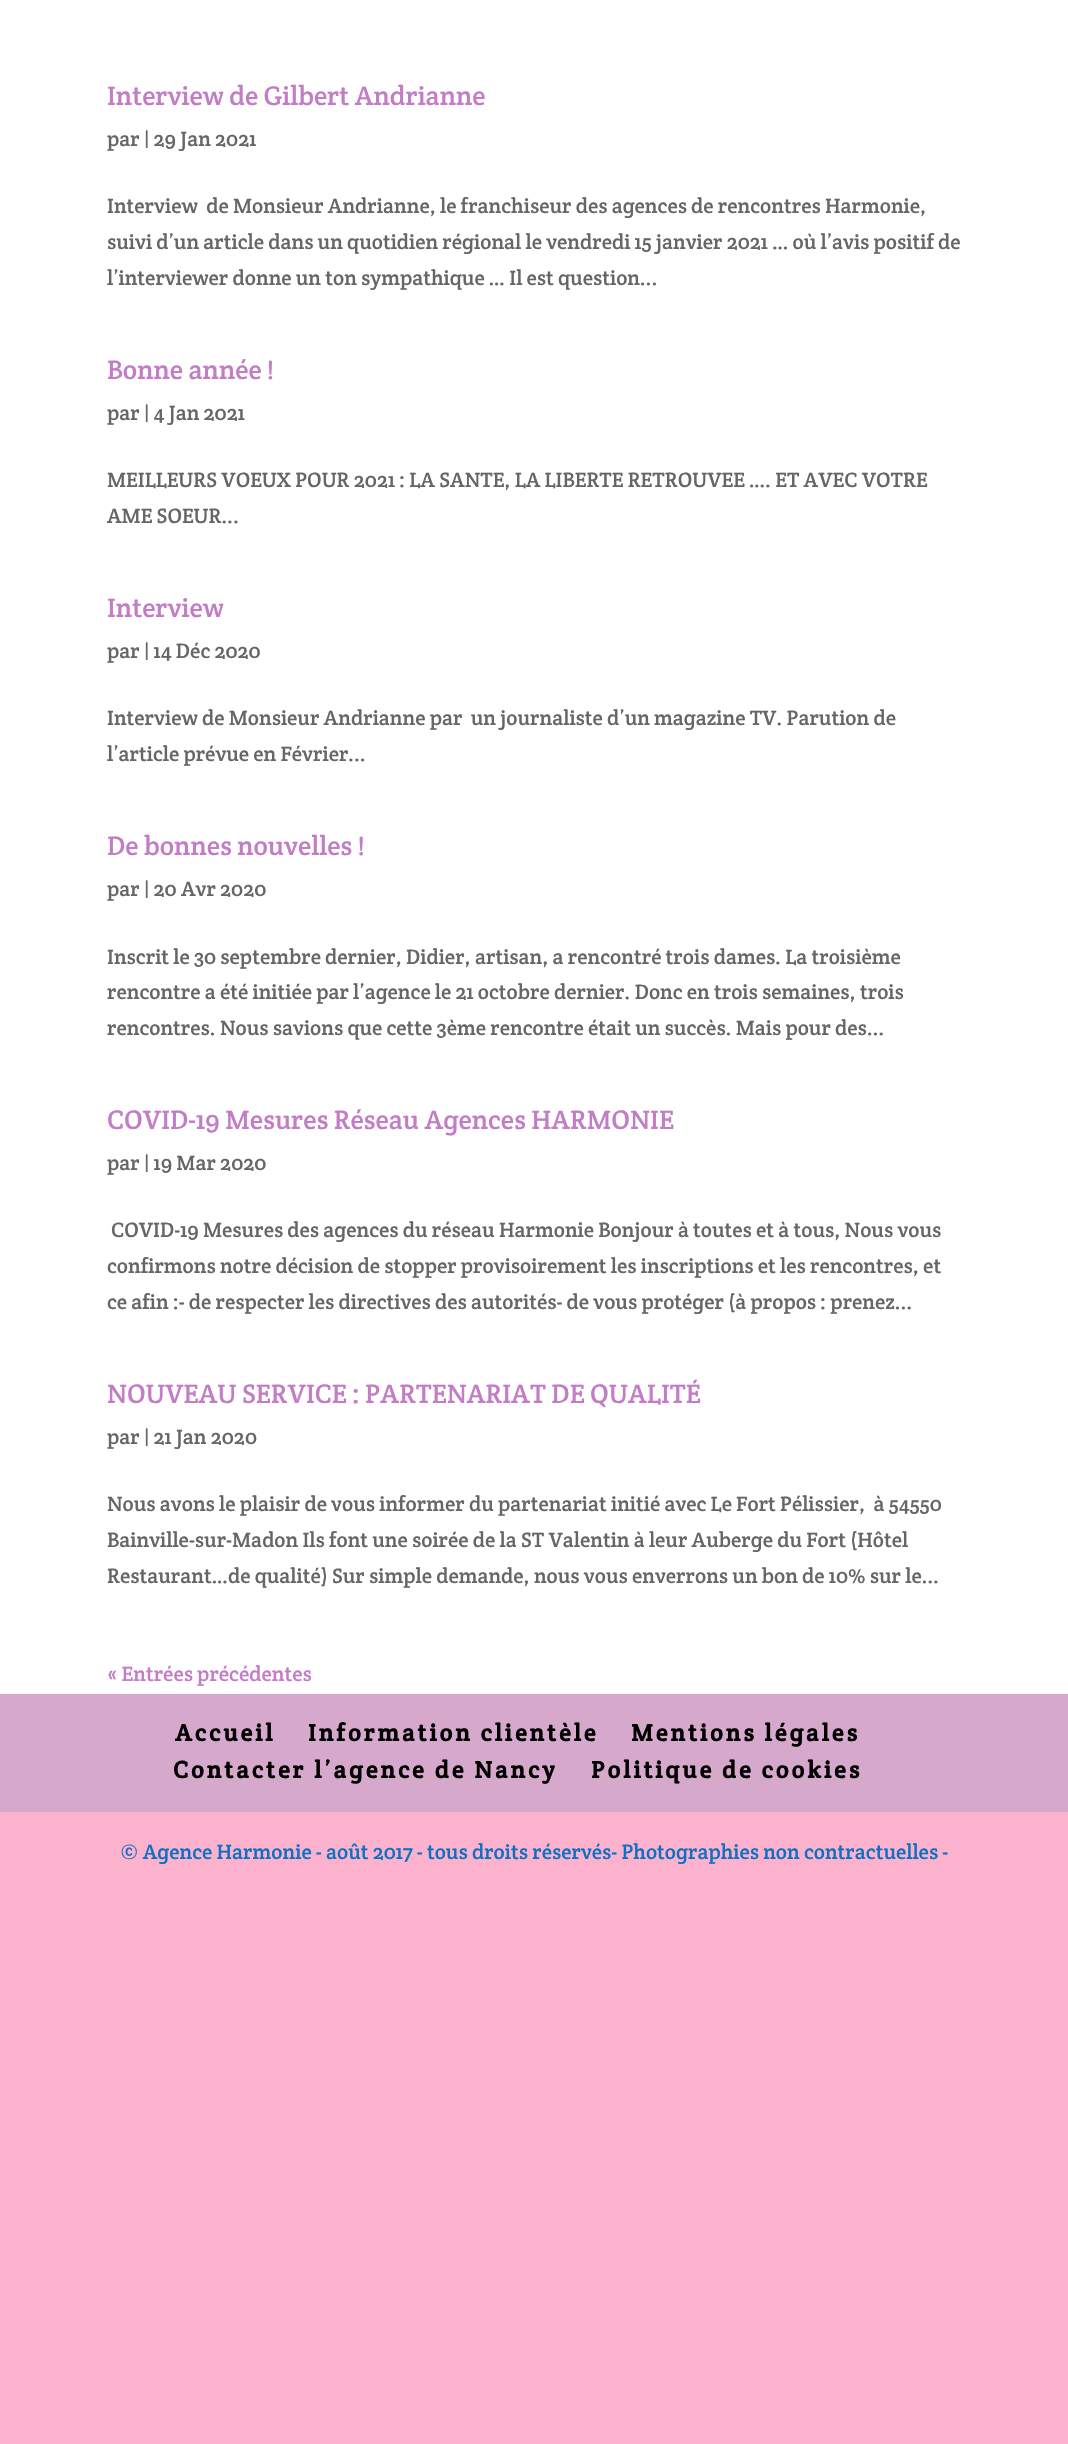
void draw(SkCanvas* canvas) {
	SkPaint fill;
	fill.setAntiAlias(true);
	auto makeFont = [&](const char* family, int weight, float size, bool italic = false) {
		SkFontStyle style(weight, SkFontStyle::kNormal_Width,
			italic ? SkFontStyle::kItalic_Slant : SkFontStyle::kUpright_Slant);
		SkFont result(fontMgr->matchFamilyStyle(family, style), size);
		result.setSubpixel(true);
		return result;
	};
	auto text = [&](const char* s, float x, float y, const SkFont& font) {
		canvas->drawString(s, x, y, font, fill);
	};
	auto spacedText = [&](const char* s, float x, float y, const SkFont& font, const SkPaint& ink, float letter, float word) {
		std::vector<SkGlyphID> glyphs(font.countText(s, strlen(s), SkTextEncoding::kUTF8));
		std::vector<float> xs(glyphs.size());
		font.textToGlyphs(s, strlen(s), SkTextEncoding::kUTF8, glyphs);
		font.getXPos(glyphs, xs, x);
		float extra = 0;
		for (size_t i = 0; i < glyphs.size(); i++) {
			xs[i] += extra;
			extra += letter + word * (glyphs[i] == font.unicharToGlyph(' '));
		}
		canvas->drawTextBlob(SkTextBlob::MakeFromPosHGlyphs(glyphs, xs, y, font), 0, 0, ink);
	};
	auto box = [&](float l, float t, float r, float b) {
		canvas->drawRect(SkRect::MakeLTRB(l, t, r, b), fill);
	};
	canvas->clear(0xFFFCB2CD);
	fill.setColor(0xFFFFFFFF);
	box(0, 0, 1068, 1694);
	fill.setColor(0xFFD6A8CB);
	box(0, 1694, 1068, 1812);
	auto font1 = makeFont("Crete Round", 400, 27);
	fill.setColor(0xFFC37CC6);
	text("Interview de Gilbert Andrianne", 107, 105, font1);
	auto font2 = makeFont("Crete Round", 400, 21);
	fill.setColor(0xFF666666);
	text("par | 29 Jan 2021", 107, 146, font2);
	text("Interview  de Monsieur Andrianne, le franchiseur des agences de rencontres Harmonie,", 107, 213, font2);
	text("suivi d’un article dans un quotidien régional le vendredi 15 janvier 2021 … où l’avis positif de", 107, 249, font2);
	text("l’interviewer donne un ton sympathique … Il est question...", 107, 285, font2);
	fill.setColor(0xFFC37CC6);
	text("Bonne année !", 107, 379, font1);
	fill.setColor(0xFF666666);
	text("par | 4 Jan 2021", 107, 420, font2);
	text("MEILLEURS VOEUX POUR 2021 : LA SANTE, LA LIBERTE RETROUVEE …. ET AVEC VOTRE", 107, 487, font2);
	text("AME SOEUR...", 107, 523, font2);
	fill.setColor(0xFFC37CC6);
	text("Interview", 107, 617, font1);
	fill.setColor(0xFF666666);
	text("par | 14 Déc 2020", 107, 658, font2);
	text("Interview de Monsieur Andrianne par  un journaliste d’un magazine TV. Parution de", 107, 725, font2);
	text("l’article prévue en Février...", 107, 761, font2);
	fill.setColor(0xFFC37CC6);
	text("De bonnes nouvelles !", 107, 855, font1);
	fill.setColor(0xFF666666);
	text("par | 20 Avr 2020", 107, 896, font2);
	text("Inscrit le 30 septembre dernier, Didier, artisan, a rencontré trois dames. La troisième", 107, 964, font2);
	text("rencontre a été initiée par l’agence le 21 octobre dernier. Donc en trois semaines, trois", 107, 999, font2);
	text("rencontres. Nous savions que cette 3ème rencontre était un succès. Mais pour des...", 107, 1035, font2);
	fill.setColor(0xFFC37CC6);
	text("COVID-19 Mesures Réseau Agences HARMONIE", 107, 1129, font1);
	fill.setColor(0xFF666666);
	text("par | 19 Mar 2020", 107, 1170, font2);
	text("COVID-19 Mesures des agences du réseau Harmonie Bonjour à toutes et à tous, Nous vous", 111, 1237, font2);
	text("confirmons notre décision de stopper provisoirement les inscriptions et les rencontres, et", 107, 1273, font2);
	text("ce afin :- de respecter les directives des autorités- de vous protéger (à propos : prenez...", 107, 1309, font2);
	fill.setColor(0xFFC37CC6);
	text("NOUVEAU SERVICE : PARTENARIAT DE QUALITÉ", 107, 1403, font1);
	fill.setColor(0xFF666666);
	text("par | 21 Jan 2020", 107, 1444, font2);
	text("Nous avons le plaisir de vous informer du partenariat initié avec Le Fort Pélissier,  à 54550", 107, 1511, font2);
	text("Bainville-sur-Madon Ils font une soirée de la ST Valentin à leur Auberge du Fort (Hôtel", 107, 1547, font2);
	text("Restaurant…de qualité) Sur simple demande, nous vous enverrons un bon de 10% sur le...", 107, 1583, font2);
	fill.setColor(0xFFC37CC6);
	text("« Entrées précédentes", 107, 1681, font2);
	auto font3 = makeFont("Crete Round", 700, 24);
	fill.setColor(0xFF000000);
	spacedText("Accueil", 175, 1741, font3, fill, 3, 0);
	spacedText("Information clientèle", 308, 1741, font3, fill, 3, 0);
	spacedText("Mentions légales", 631, 1741, font3, fill, 3, 0);
	spacedText("Contacter l’agence de Nancy", 173, 1778, font3, fill, 3, 0);
	spacedText("Politique de cookies", 591, 1778, font3, fill, 3, 0);
	fill.setColor(0xFF0C71C3);
	text("© Agence Harmonie - août 2017 - tous droits réservés- Photographies non contractuelles -", 120, 1859, font2);
}
